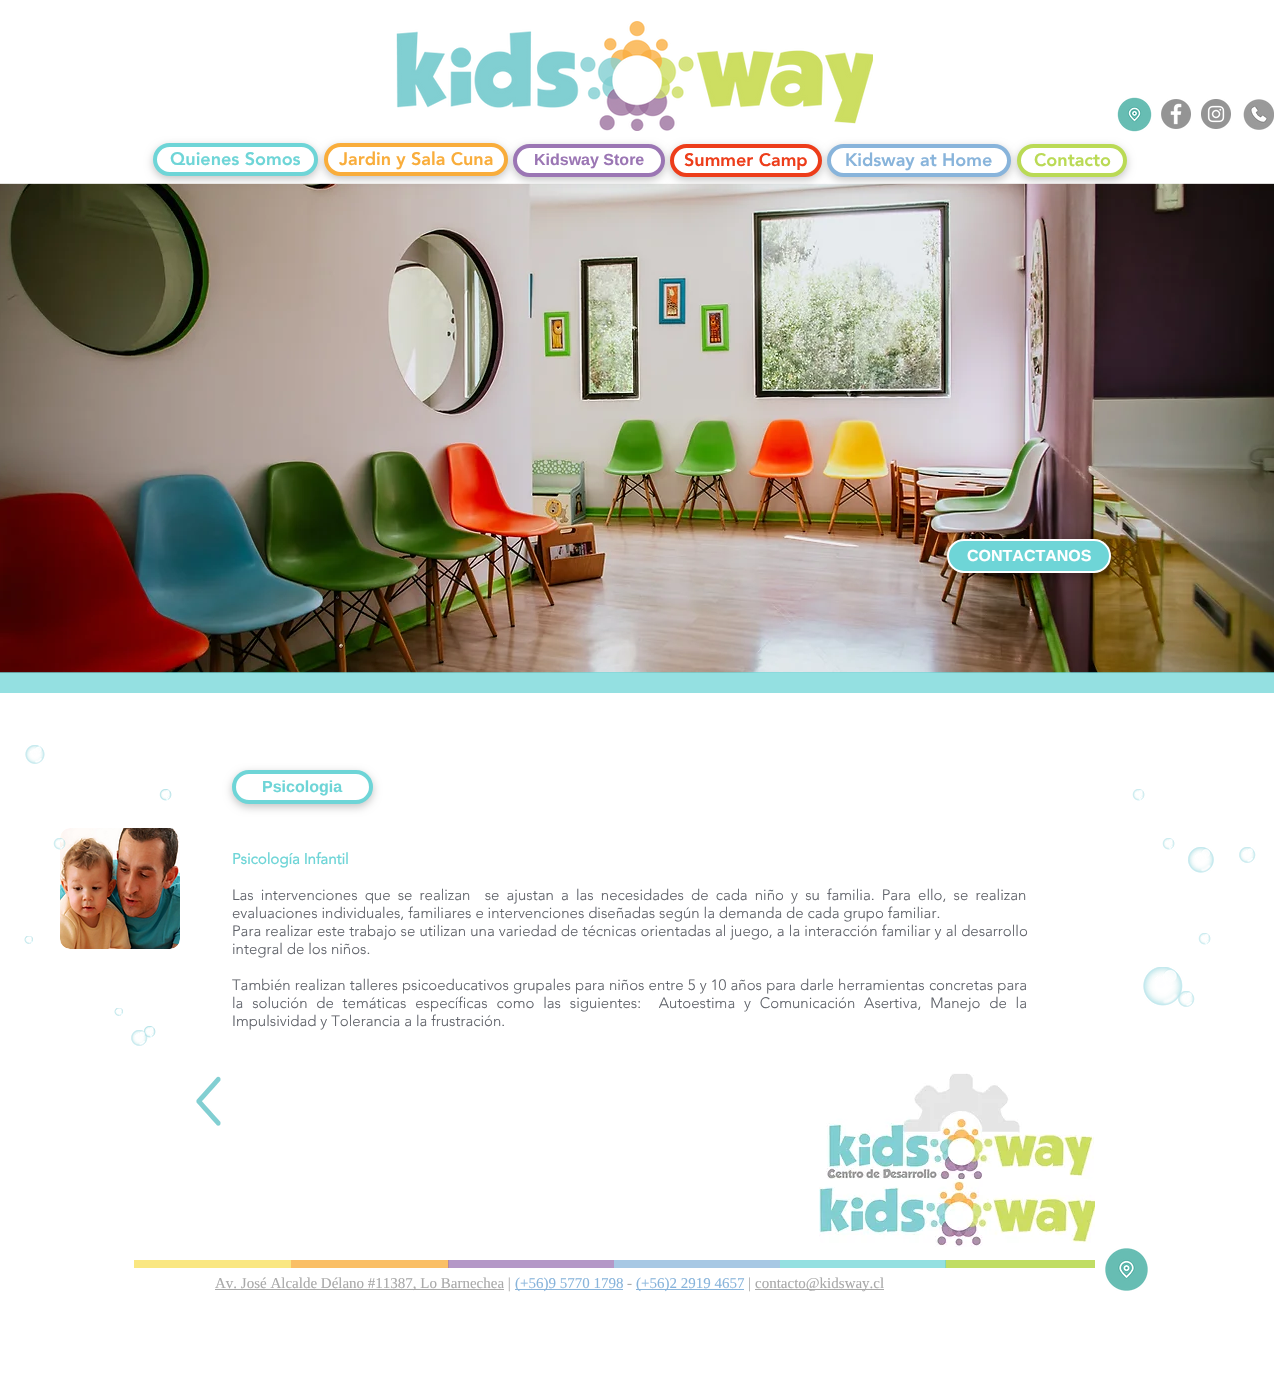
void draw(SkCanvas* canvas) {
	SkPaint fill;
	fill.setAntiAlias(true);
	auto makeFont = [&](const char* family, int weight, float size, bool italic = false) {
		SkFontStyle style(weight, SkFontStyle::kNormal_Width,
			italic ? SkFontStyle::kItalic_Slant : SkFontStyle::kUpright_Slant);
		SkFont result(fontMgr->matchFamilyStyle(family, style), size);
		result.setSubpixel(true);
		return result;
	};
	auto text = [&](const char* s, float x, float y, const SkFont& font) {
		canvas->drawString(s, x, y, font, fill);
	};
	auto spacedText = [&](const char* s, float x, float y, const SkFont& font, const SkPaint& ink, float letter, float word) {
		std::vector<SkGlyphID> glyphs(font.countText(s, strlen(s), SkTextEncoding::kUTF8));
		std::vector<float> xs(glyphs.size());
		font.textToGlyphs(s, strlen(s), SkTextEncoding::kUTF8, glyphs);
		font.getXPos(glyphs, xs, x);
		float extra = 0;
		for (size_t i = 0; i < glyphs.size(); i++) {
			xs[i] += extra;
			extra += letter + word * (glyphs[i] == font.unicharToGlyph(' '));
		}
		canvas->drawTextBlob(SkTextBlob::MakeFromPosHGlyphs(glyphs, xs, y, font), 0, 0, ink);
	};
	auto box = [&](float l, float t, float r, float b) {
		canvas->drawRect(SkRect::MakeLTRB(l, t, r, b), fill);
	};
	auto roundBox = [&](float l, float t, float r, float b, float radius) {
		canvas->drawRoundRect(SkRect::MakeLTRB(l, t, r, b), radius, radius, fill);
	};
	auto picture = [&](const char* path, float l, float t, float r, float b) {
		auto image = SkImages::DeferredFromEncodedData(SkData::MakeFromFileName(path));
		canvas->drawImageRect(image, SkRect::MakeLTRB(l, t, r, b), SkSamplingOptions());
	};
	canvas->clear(0xFFFFFFFF);
	fill.setColor(0xFF94E0E1);
	box(780, 1260, 946, 1268);
	fill.setColor(0xFFB498C7);
	box(448, 1260, 614, 1268);
	picture("image0.png", 396, 21, 873, 131);
	picture("image1.png", 1117, 97, 1152, 132);
	picture("image2.png", 1161, 99, 1191, 129);
	picture("image3.png", 1201, 99, 1231, 129);
	picture("image4.png", 1243, 99, 1274, 130);
	picture("image5.png", 0, 183, 1274, 673);
	fill.setColor(0xD6FFFFFF);
	box(0, 183, 1274, 184);
	fill.setColor(0x3B000000);
	fill.setMaskFilter(SkMaskFilter::MakeBlur(kNormal_SkBlurStyle, 4.5f));
	canvas->drawRoundRect(SkRect::MakeLTRB(153, 146, 318, 179), 16.5f, 16.5f, fill);
	fill.setMaskFilter(nullptr);
	fill.setColor(0xFFFFFFFF);
	canvas->drawRoundRect(SkRect::MakeLTRB(155, 145, 316, 174), 14.5f, 14.5f, fill);
	fill.setStyle(SkPaint::kStroke_Style);
	fill.setStrokeWidth(4);
	fill.setColor(0xFF6ED5D7);
	canvas->drawRoundRect(SkRect::MakeLTRB(155, 145, 316, 174), 14.5f, 14.5f, fill);
	fill.setStyle(SkPaint::kFill_Style);
	fill.setColor(0x3B000000);
	fill.setMaskFilter(SkMaskFilter::MakeBlur(kNormal_SkBlurStyle, 4.5f));
	canvas->drawRoundRect(SkRect::MakeLTRB(324, 146, 508, 179), 16.5f, 16.5f, fill);
	fill.setMaskFilter(nullptr);
	fill.setColor(0xFFFFFFFF);
	canvas->drawRoundRect(SkRect::MakeLTRB(326, 145, 506, 174), 14.5f, 14.5f, fill);
	fill.setStyle(SkPaint::kStroke_Style);
	fill.setColor(0xFFF9AD3B);
	canvas->drawRoundRect(SkRect::MakeLTRB(326, 145, 506, 174), 14.5f, 14.5f, fill);
	fill.setStyle(SkPaint::kFill_Style);
	fill.setColor(0x3B000000);
	fill.setMaskFilter(SkMaskFilter::MakeBlur(kNormal_SkBlurStyle, 4.5f));
	canvas->drawRoundRect(SkRect::MakeLTRB(513, 147, 665, 180), 16.5f, 16.5f, fill);
	fill.setMaskFilter(nullptr);
	fill.setColor(0xFFFFFFFF);
	canvas->drawRoundRect(SkRect::MakeLTRB(515, 146, 663, 175), 14.5f, 14.5f, fill);
	fill.setStyle(SkPaint::kStroke_Style);
	fill.setColor(0xFF9B76B4);
	canvas->drawRoundRect(SkRect::MakeLTRB(515, 146, 663, 175), 14.5f, 14.5f, fill);
	fill.setStyle(SkPaint::kFill_Style);
	fill.setColor(0x3B000000);
	fill.setMaskFilter(SkMaskFilter::MakeBlur(kNormal_SkBlurStyle, 4.5f));
	canvas->drawRoundRect(SkRect::MakeLTRB(670, 147, 822, 180), 16.5f, 16.5f, fill);
	fill.setMaskFilter(nullptr);
	fill.setColor(0xFFFFFFFF);
	canvas->drawRoundRect(SkRect::MakeLTRB(672, 146, 820, 175), 14.5f, 14.5f, fill);
	fill.setStyle(SkPaint::kStroke_Style);
	fill.setColor(0xFFED3D1A);
	canvas->drawRoundRect(SkRect::MakeLTRB(672, 146, 820, 175), 14.5f, 14.5f, fill);
	fill.setStyle(SkPaint::kFill_Style);
	fill.setColor(0x3B000000);
	fill.setMaskFilter(SkMaskFilter::MakeBlur(kNormal_SkBlurStyle, 4.5f));
	canvas->drawRoundRect(SkRect::MakeLTRB(827, 147, 1011, 180), 16.5f, 16.5f, fill);
	fill.setMaskFilter(nullptr);
	fill.setColor(0xFFFFFFFF);
	canvas->drawRoundRect(SkRect::MakeLTRB(829, 146, 1009, 175), 14.5f, 14.5f, fill);
	fill.setStyle(SkPaint::kStroke_Style);
	fill.setColor(0xFF88B4DB);
	canvas->drawRoundRect(SkRect::MakeLTRB(829, 146, 1009, 175), 14.5f, 14.5f, fill);
	fill.setStyle(SkPaint::kFill_Style);
	fill.setColor(0x3B000000);
	fill.setMaskFilter(SkMaskFilter::MakeBlur(kNormal_SkBlurStyle, 4.5f));
	canvas->drawRoundRect(SkRect::MakeLTRB(1017, 147, 1127, 180), 16.5f, 16.5f, fill);
	fill.setMaskFilter(nullptr);
	fill.setColor(0xFFFFFFFF);
	canvas->drawRoundRect(SkRect::MakeLTRB(1019, 146, 1125, 175), 14.5f, 14.5f, fill);
	fill.setStyle(SkPaint::kStroke_Style);
	fill.setColor(0xFFBADA55);
	canvas->drawRoundRect(SkRect::MakeLTRB(1019, 146, 1125, 175), 14.5f, 14.5f, fill);
	fill.setStyle(SkPaint::kFill_Style);
	fill.setColor(0x3B000000);
	fill.setMaskFilter(SkMaskFilter::MakeBlur(kNormal_SkBlurStyle, 4.5f));
	canvas->drawRoundRect(SkRect::MakeLTRB(947, 542, 1111, 576), 17, 17, fill);
	fill.setMaskFilter(nullptr);
	fill.setColor(0xFF6ED5D7);
	canvas->drawRoundRect(SkRect::MakeLTRB(948, 540, 1110, 572), 16, 16, fill);
	fill.setStyle(SkPaint::kStroke_Style);
	fill.setStrokeWidth(2);
	fill.setColor(0xFFFFFFFF);
	canvas->drawRoundRect(SkRect::MakeLTRB(948, 540, 1110, 572), 16, 16, fill);
	fill.setStyle(SkPaint::kFill_Style);
	fill.setColor(0xBD6ED5D7);
	box(0, 672, 1274, 693);
	picture("image6.png", 25, 745, 45, 764);
	picture("image7.png", 159, 789, 172, 801);
	picture("image16.png", 60, 828, 180, 949);
	picture("image8.png", 53, 838, 66, 850);
	picture("image9.png", 24, 936, 33, 944);
	picture("image9.png", 114, 1008, 123, 1016);
	picture("image7.png", 143, 1026, 156, 1038);
	picture("image10.png", 131, 1030, 148, 1046);
	fill.setColor(0x3B000000);
	fill.setMaskFilter(SkMaskFilter::MakeBlur(kNormal_SkBlurStyle, 4.5f));
	canvas->drawRoundRect(SkRect::MakeLTRB(232, 773, 373, 807), 17, 17, fill);
	fill.setMaskFilter(nullptr);
	fill.setColor(0xFFFFFFFF);
	canvas->drawRoundRect(SkRect::MakeLTRB(234, 772, 371, 802), 15, 15, fill);
	fill.setStyle(SkPaint::kStroke_Style);
	fill.setStrokeWidth(4);
	fill.setColor(0xFF6ED5D7);
	canvas->drawRoundRect(SkRect::MakeLTRB(234, 772, 371, 802), 15, 15, fill);
	picture("image11.png", 1132, 789, 1145, 801);
	picture("image11.png", 1162, 838, 1175, 850);
	picture("image12.png", 1188, 847, 1214, 873);
	picture("image13.png", 1239, 847, 1256, 863);
	picture("image11.png", 1198, 933, 1211, 945);
	picture("image14.png", 1143, 967, 1183, 1006);
	picture("image15.png", 1178, 991, 1195, 1007);
	picture("image17.png", 196, 1076, 221, 1126);
	picture("image18.png", 826, 1073, 1094, 1181);
	fill.setStyle(SkPaint::kFill_Style);
	fill.setColor(0xFFFFFFFF);
	roundBox(819, 1179, 1095, 1247, 10);
	picture("image19.png", 819, 1179, 1095, 1247);
	fill.setColor(0xFFFAE782);
	box(134, 1260, 291, 1268);
	fill.setColor(0xFFFABF66);
	box(291, 1260, 449, 1268);
	fill.setColor(0xFFB388A1);
	box(448, 1260, 449, 1268);
	fill.setColor(0xFFA7C8E4);
	box(614, 1260, 780, 1268);
	fill.setColor(0xFFC0DD64);
	box(945, 1260, 1095, 1268);
	fill.setColor(0xFF83D7B9);
	box(945, 1260, 946, 1268);
	picture("image20.png", 1105, 1248, 1148, 1291);
	fill.setColor(0xFFA9A9A9);
	box(215, 1289, 504, 1290);
	fill.setColor(0xFF88B4DB);
	box(515, 1289, 623, 1290);
	box(636, 1289, 744, 1290);
	fill.setColor(0xFFA9A9A9);
	box(755, 1289, 884, 1290);
	auto font1 = makeFont("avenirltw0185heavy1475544", 900, 18);
	fill.setColor(0xFF6ED5D7);
	text("Quienes Somos", 170, 165, font1);
	fill.setColor(0xFFF9AD3B);
	text("Jardin y Sala Cuna", 339, 165, font1);
	auto font2 = makeFont("Liberation Sans", 700, 16);
	fill.setColor(0xFF9B76B4);
	text("Kidsway Store", 534, 165, font2);
	fill.setColor(0xFFED3D1A);
	text("Summer Camp", 684, 166, font1);
	fill.setColor(0xFF88B4DB);
	text("Kidsway at Home", 845, 166, font1);
	fill.setColor(0xFFBADA55);
	text("Contacto", 1034, 166, font1);
	fill.setColor(0xFFFFFFFF);
	text("CONTACTANOS", 967, 561, font2);
	fill.setColor(0xFF6ED5D7);
	text("Psicologia", 262, 792, font2);
	auto font3 = makeFont("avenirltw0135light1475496", 700, 15);
	text("Psicología Infantil", 232, 864, font3);
	auto font4 = makeFont("avenirltw0135light1475496", 300, 15);
	fill.setColor(0xFF61646B);
	spacedText("Las intervenciones que se realizan  se ajustan a las necesidades de cada niño y su familia. Para ello, se realizan", 232, 900, font4, fill, 0, 3.25f);
	text("evaluaciones individuales, familiares e intervenciones diseñadas según la demanda de cada grupo familiar.", 232, 918, font4);
	spacedText("Para realizar este trabajo se utilizan una variedad de técnicas orientadas al juego, a la interacción familiar y al desarrollo", 232, 936, font4, fill, 0, 0.25f);
	text("integral de los niños.", 232, 954, font4);
	spacedText("También realizan talleres psicoeducativos grupales para niños entre 5 y 10 años para darle herramientas concretas para", 232, 990, font4, fill, 0, 0.25f);
	spacedText("la solución de temáticas específicas como las siguientes:  Autoestima y Comunicación Asertiva, Manejo de la", 232, 1008, font4, fill, 0, 4.9f);
	text("Impulsividad y Tolerancia a la frustración.", 232, 1026, font4);
	auto font5 = makeFont("Liberation Serif", 400, 15);
	fill.setColor(0xFFA9A9A9);
	text("Av. José Alcalde Délano #11387, Lo Barnechea |", 215, 1288, font5);
	fill.setColor(0xFF88B4DB);
	text("(+56)9 5770 1798", 515, 1288, font5);
	fill.setColor(0xFFA9A9A9);
	text("-", 627, 1288, font5);
	fill.setColor(0xFF88B4DB);
	text("(+56)2 2919 4657", 636, 1288, font5);
	fill.setColor(0xFFA9A9A9);
	text("|", 748, 1288, font5);
	text("contacto@kidsway.cl", 755, 1288, font5);
}
